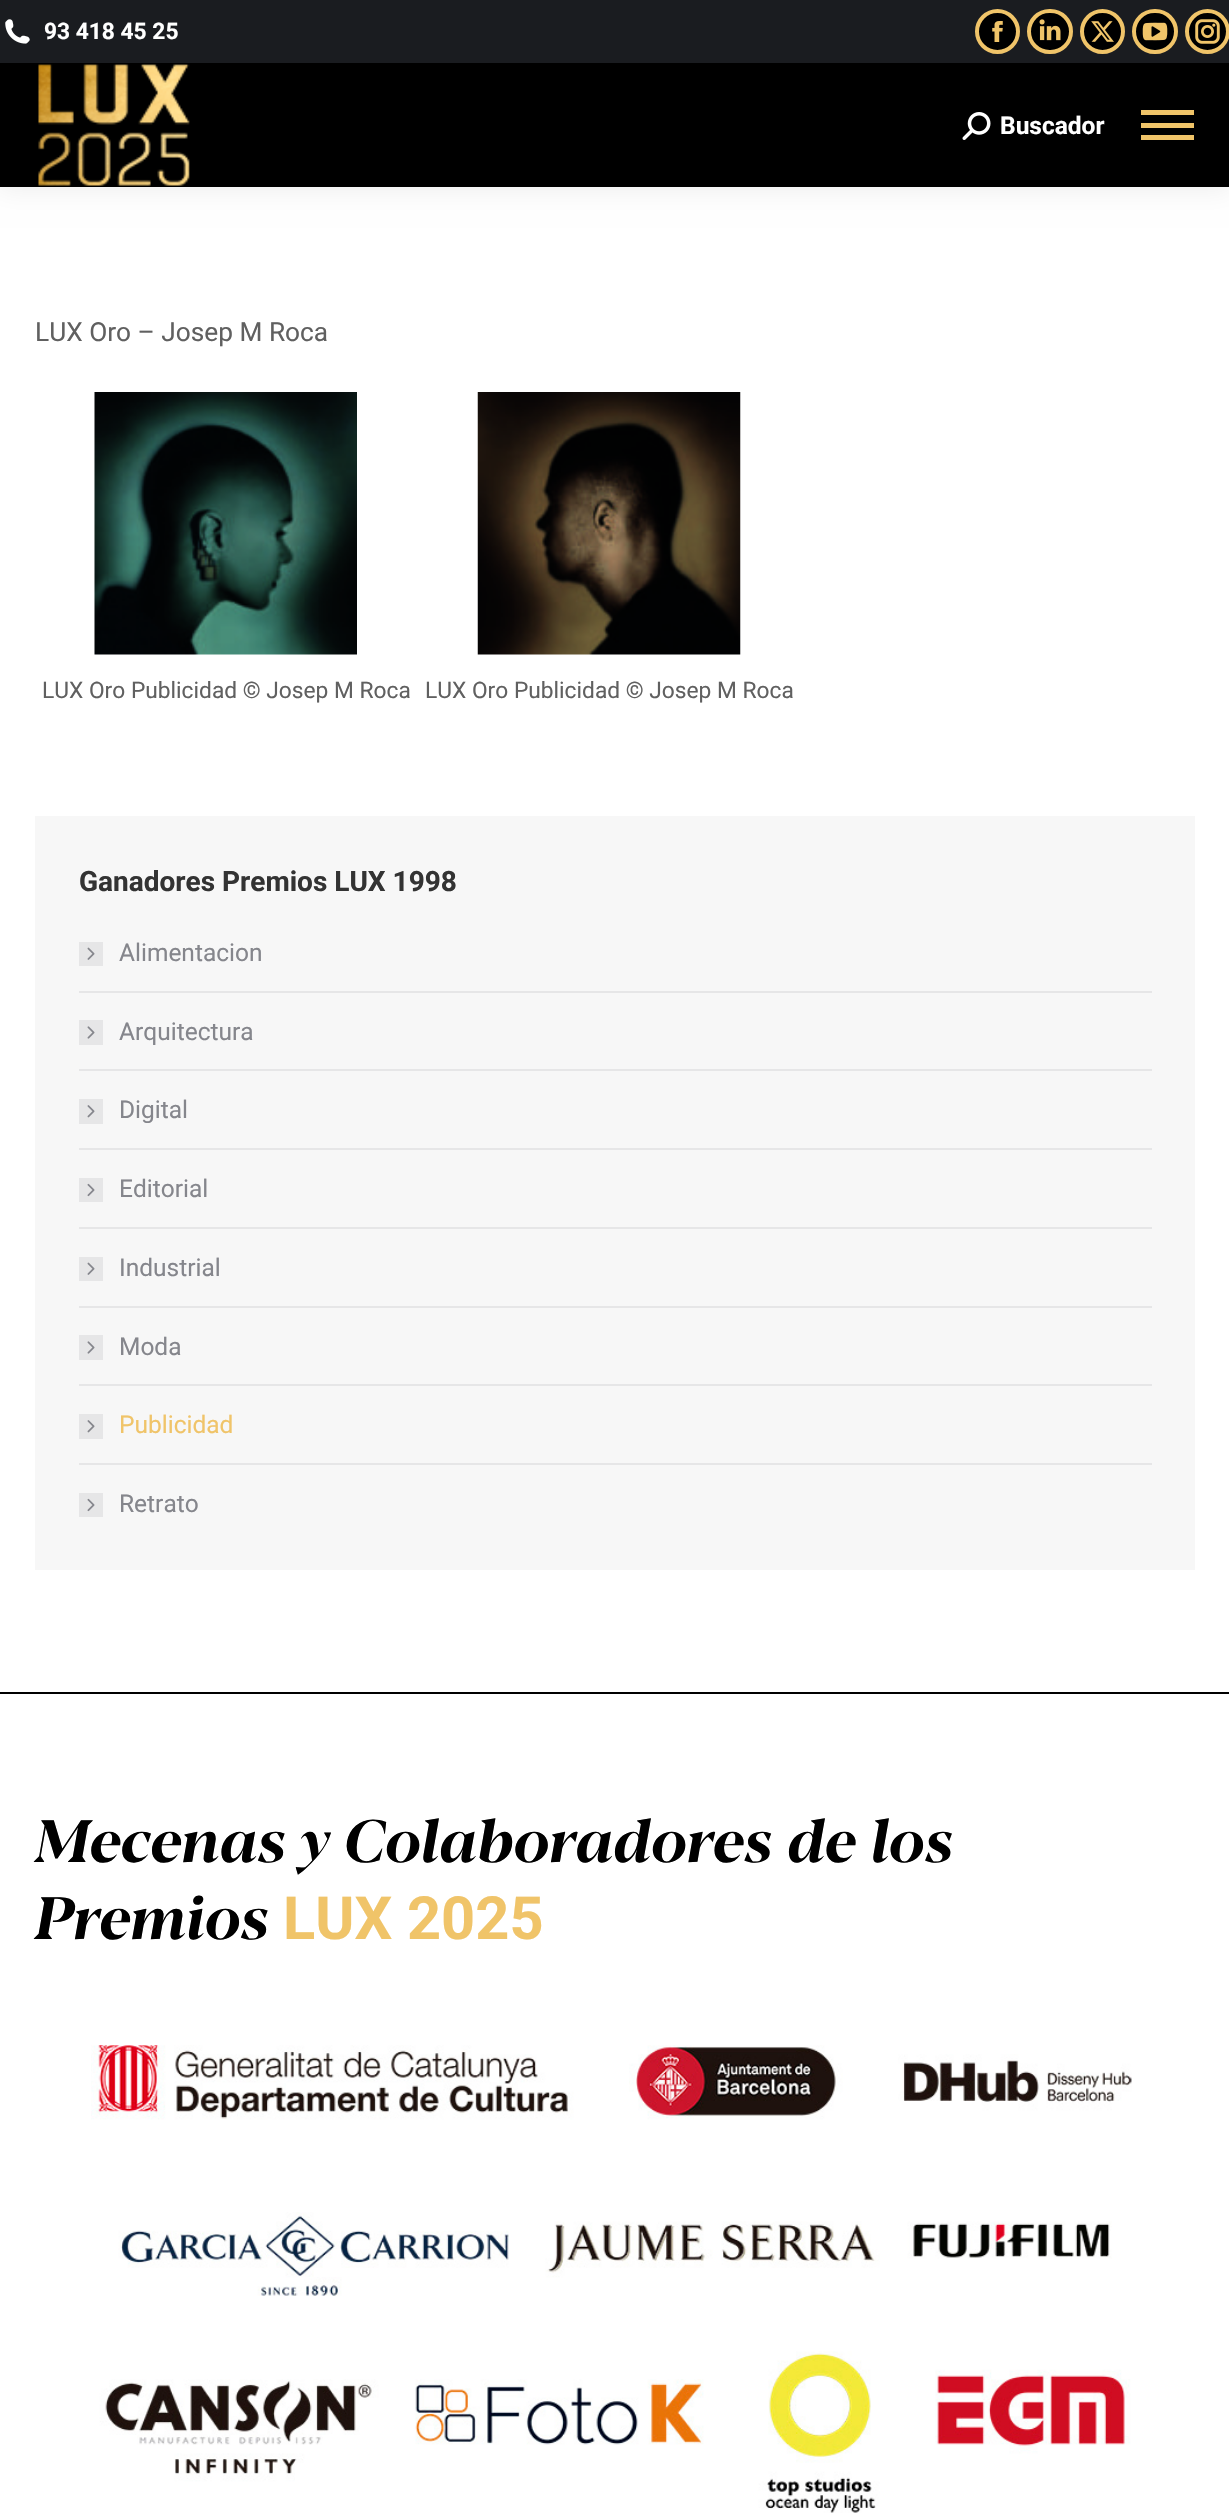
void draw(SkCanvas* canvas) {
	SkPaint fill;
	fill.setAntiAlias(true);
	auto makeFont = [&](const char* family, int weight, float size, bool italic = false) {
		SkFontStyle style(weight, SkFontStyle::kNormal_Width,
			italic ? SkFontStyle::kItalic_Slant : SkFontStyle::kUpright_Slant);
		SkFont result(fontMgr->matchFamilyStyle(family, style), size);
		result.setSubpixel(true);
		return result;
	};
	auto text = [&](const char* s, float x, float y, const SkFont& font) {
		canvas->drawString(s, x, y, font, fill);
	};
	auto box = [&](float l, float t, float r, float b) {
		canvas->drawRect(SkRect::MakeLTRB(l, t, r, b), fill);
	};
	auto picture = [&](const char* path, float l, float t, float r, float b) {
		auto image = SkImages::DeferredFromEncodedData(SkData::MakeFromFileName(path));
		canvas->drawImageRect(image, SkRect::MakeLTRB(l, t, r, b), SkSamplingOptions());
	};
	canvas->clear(0xFFFFFFFF);
	fill.setColor(0x12000000);
	fill.setMaskFilter(SkMaskFilter::MakeBlur(kNormal_SkBlurStyle, 13));
	canvas->drawRect(SkRect::MakeLTRB(-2, -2, 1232, 189), fill);
	fill.setMaskFilter(nullptr);
	fill.setColor(0xFF000000);
	box(0, 63, 1229, 187);
	fill.setColor(0xFF1A1C20);
	box(0, 0, 1229, 63);
	picture("image0.png", 5, 19, 30, 44);
	fill.setColor(0xFF000000);
	canvas->drawCircle(997.5f, 31.5f, 20.5f, fill);
	fill.setStyle(SkPaint::kStroke_Style);
	fill.setStrokeWidth(4);
	fill.setColor(0xFFF0C469);
	canvas->drawCircle(997.5f, 31.5f, 20.5f, fill);
	picture("image1.png", 992, 21, 1003, 42);
	fill.setStyle(SkPaint::kFill_Style);
	fill.setColor(0xFF000000);
	canvas->drawRoundRect(SkRect::MakeLTRB(1029, 11, 1071, 52), 20.5f, 20.5f, fill);
	fill.setStyle(SkPaint::kStroke_Style);
	fill.setColor(0xFFF0C469);
	canvas->drawRoundRect(SkRect::MakeLTRB(1029, 11, 1071, 52), 20.5f, 20.5f, fill);
	picture("image2.png", 1039, 19, 1061, 41);
	fill.setStyle(SkPaint::kFill_Style);
	fill.setColor(0xFF000000);
	canvas->drawCircle(1102.5f, 31.5f, 20.5f, fill);
	fill.setStyle(SkPaint::kStroke_Style);
	fill.setColor(0xFFF0C469);
	canvas->drawCircle(1102.5f, 31.5f, 20.5f, fill);
	picture("image3.png", 1091, 21, 1114, 42);
	fill.setStyle(SkPaint::kFill_Style);
	fill.setColor(0xFF000000);
	canvas->drawRoundRect(SkRect::MakeLTRB(1134, 11, 1176, 52), 20.5f, 20.5f, fill);
	fill.setStyle(SkPaint::kStroke_Style);
	fill.setColor(0xFFF0C469);
	canvas->drawRoundRect(SkRect::MakeLTRB(1134, 11, 1176, 52), 20.5f, 20.5f, fill);
	picture("image4.png", 1142, 22, 1168, 41);
	fill.setStyle(SkPaint::kFill_Style);
	fill.setColor(0xFF000000);
	canvas->drawCircle(1207.5f, 31.5f, 20.5f, fill);
	fill.setStyle(SkPaint::kStroke_Style);
	fill.setColor(0xFFF0C469);
	canvas->drawCircle(1207.5f, 31.5f, 20.5f, fill);
	picture("image5.png", 1195, 19, 1220, 44);
	picture("image6.png", 38, 64, 190, 186);
	picture("image7.png", 962, 112, 991, 140);
	fill.setStyle(SkPaint::kFill_Style);
	box(1141, 110, 1194, 115);
	box(1141, 123, 1194, 128);
	box(1141, 135, 1194, 140);
	picture("image8.png", 94, 392, 357, 655);
	picture("image9.png", 477, 392, 741, 655);
	fill.setColor(0xFFF7F7F7);
	box(35, 816, 1195, 1570);
	fill.setColor(0xFFE6E6E7);
	box(79, 942, 103, 966);
	picture("image10.png", 87, 947, 95, 960);
	box(79, 991, 1152, 993);
	box(79, 1020, 103, 1045);
	picture("image11.png", 87, 1026, 95, 1039);
	box(79, 1069, 1152, 1071);
	box(79, 1099, 103, 1124);
	picture("image12.png", 87, 1105, 95, 1118);
	box(79, 1148, 1152, 1150);
	box(79, 1178, 103, 1202);
	picture("image13.png", 87, 1183, 95, 1197);
	box(79, 1227, 1152, 1229);
	box(79, 1257, 103, 1281);
	picture("image10.png", 87, 1262, 95, 1275);
	box(79, 1306, 1152, 1308);
	box(79, 1335, 103, 1360);
	picture("image11.png", 87, 1341, 95, 1354);
	box(79, 1384, 1152, 1386);
	box(79, 1414, 103, 1439);
	picture("image12.png", 87, 1420, 95, 1433);
	box(79, 1463, 1152, 1465);
	box(79, 1493, 103, 1517);
	picture("image13.png", 87, 1498, 95, 1512);
	fill.setColor(0xFF000000);
	box(0, 1692, 1229, 1694);
	picture("image14.png", 91, 2045, 1132, 2513);
	auto font1 = makeFont("Roboto", 700, 22.75f);
	fill.setColor(0xFFFFFFFF);
	text("93 418 45 25", 44, 39, font1);
	auto font2 = makeFont("Roboto", 700, 24.5f);
	text("Buscador", 1000, 134, font2);
	auto font3 = makeFont("Roboto", 400, 26.25f);
	fill.setColor(0xFF606060);
	text("LUX Oro – Josep M Roca", 35, 341, font3);
	auto font4 = makeFont("Roboto", 400, 22.75f);
	text("LUX Oro Publicidad © Josep M Roca", 42, 698, font4);
	text("LUX Oro Publicidad © Josep M Roca", 425, 698, font4);
	auto font5 = makeFont("Roboto", 700, 28);
	fill.setColor(0xFF333333);
	text("Ganadores Premios LUX 1998", 79, 891, font5);
	auto font6 = makeFont("Roboto", 400, 24.5f);
	fill.setColor(0xFF85868C);
	text("Alimentacion", 119, 961, font6);
	text("Arquitectura", 119, 1040, font6);
	text("Digital", 119, 1118, font6);
	text("Editorial", 119, 1197, font6);
	text("Industrial", 119, 1276, font6);
	text("Moda", 119, 1355, font6);
	fill.setColor(0xFFF0C469);
	text("Publicidad", 119, 1433, font6);
	fill.setColor(0xFF85868C);
	text("Retrato", 119, 1512, font6);
	auto font7 = makeFont("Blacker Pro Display", 700, 59.5f, true);
	fill.setColor(0xFF000000);
	text("Mecenas y Colaboradores de los", 35, 1862, font7);
	text("Premios", 35, 1939, font7);
	auto font8 = makeFont("Roboto", 700, 59.5f);
	fill.setColor(0xFFF0C469);
	text("LUX 2025", 283, 1939, font8);
}
